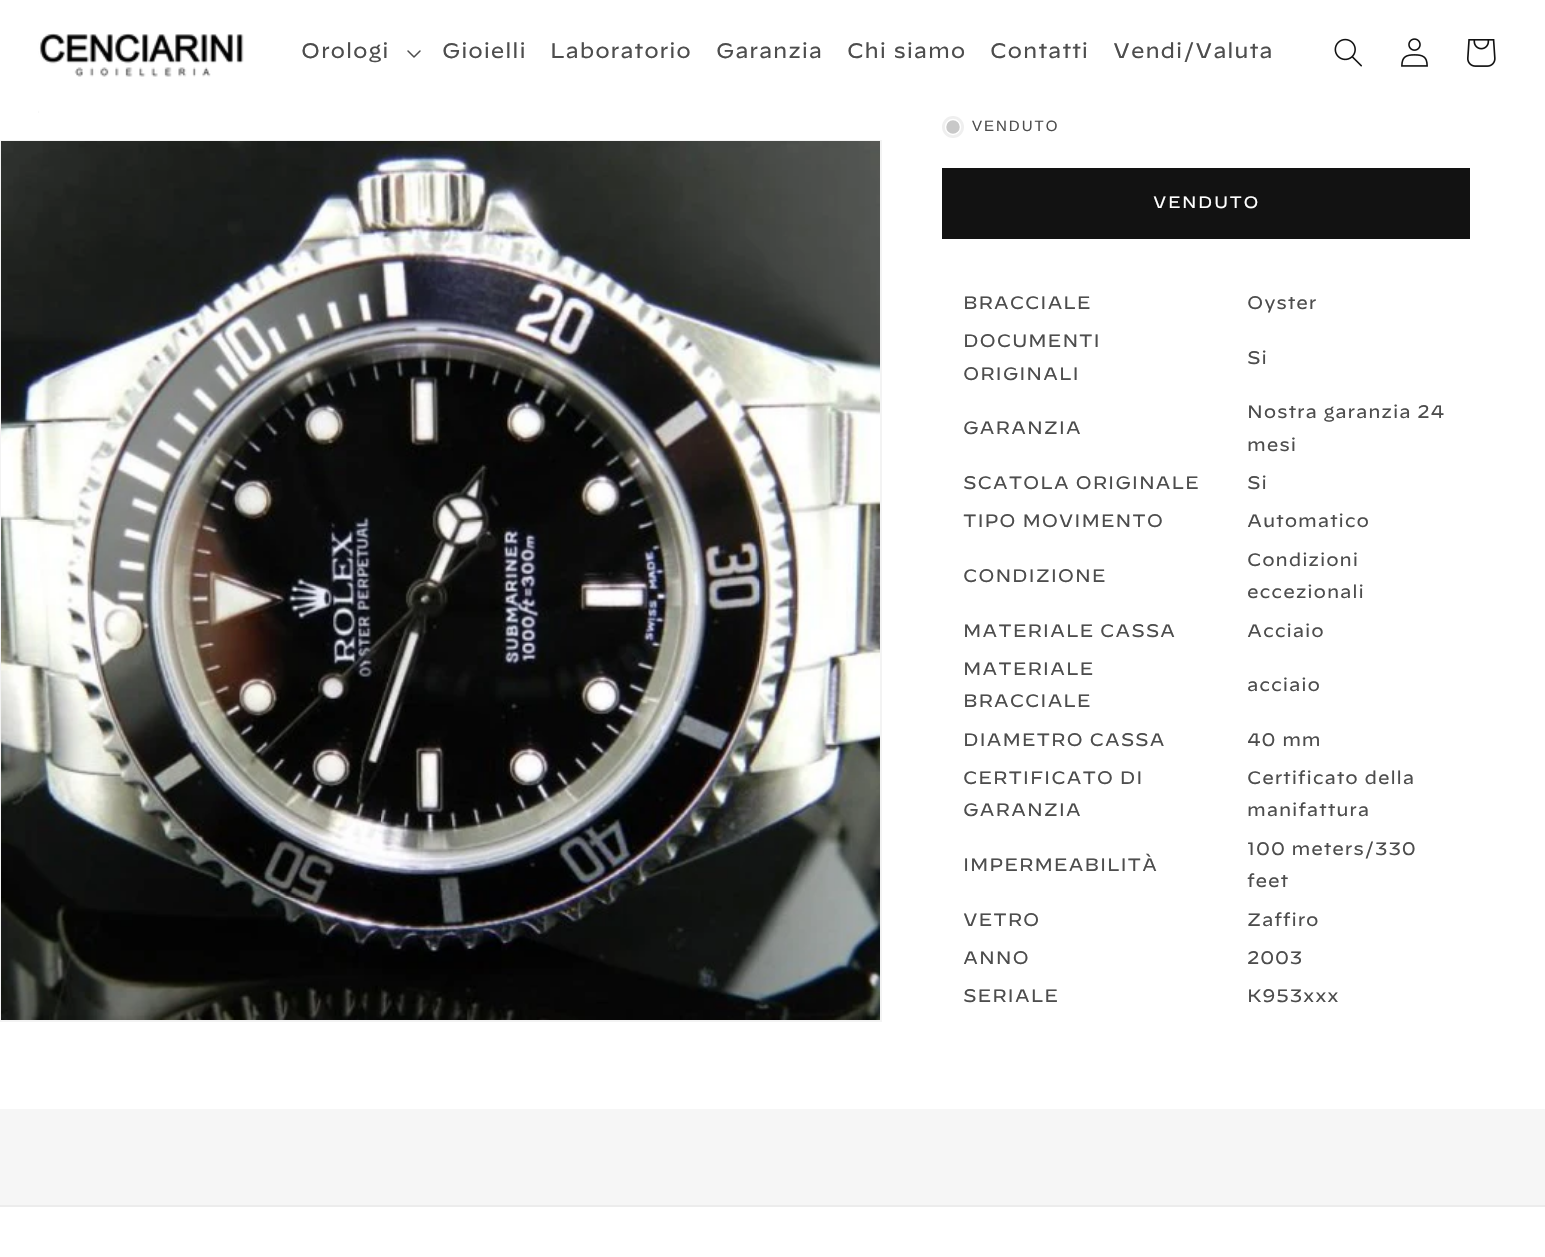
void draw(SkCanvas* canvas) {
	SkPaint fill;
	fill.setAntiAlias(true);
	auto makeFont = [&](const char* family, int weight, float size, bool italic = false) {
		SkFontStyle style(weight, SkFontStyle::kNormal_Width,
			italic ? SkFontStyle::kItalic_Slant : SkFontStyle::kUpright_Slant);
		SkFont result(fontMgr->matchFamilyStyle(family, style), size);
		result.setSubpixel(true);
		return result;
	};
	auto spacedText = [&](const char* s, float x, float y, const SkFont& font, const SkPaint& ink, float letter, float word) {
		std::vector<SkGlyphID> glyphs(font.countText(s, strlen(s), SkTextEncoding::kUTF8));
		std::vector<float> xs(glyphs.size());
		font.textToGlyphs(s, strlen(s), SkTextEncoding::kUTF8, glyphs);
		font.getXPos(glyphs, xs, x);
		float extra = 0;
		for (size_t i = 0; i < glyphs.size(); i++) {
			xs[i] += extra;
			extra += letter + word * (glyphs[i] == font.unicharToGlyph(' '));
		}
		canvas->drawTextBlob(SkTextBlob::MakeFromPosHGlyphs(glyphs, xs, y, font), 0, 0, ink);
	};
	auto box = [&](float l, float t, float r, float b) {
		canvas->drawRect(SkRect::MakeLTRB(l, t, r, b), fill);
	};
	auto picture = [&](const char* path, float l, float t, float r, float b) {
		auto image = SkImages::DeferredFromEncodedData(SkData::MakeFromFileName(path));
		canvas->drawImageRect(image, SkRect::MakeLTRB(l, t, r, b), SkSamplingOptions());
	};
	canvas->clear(0xFFFFFFFF);
	picture("image0.png", 38, 33, 244, 113);
	picture("image1.png", 407, 50, 421, 58);
	picture("image2.png", 1334, 38, 1362, 67);
	picture("image3.png", 1401, 38, 1428, 67);
	picture("image4.png", 1467, 39, 1496, 67);
	fill.setStyle(SkPaint::kStroke_Style);
	fill.setStrokeWidth(2);
	fill.setColor(0xFFF3F3F3);
	canvas->drawRect(SkRect::MakeLTRB(1, 141, 881, 1021), fill);
	picture("image5.png", 1, 141, 880, 1020);
	fill.setStyle(SkPaint::kFill_Style);
	fill.setColor(0xFFEFEFEF);
	canvas->drawCircle(953, 127, 11, fill);
	fill.setColor(0xFFC8C8C8);
	canvas->drawCircle(953, 127, 7.5f, fill);
	fill.setStyle(SkPaint::kStroke_Style);
	fill.setStrokeWidth(1.5f);
	fill.setColor(0xFFFFFFFF);
	canvas->drawCircle(953, 127, 7.5f, fill);
	fill.setStyle(SkPaint::kFill_Style);
	fill.setColor(0xFF121212);
	box(942, 168, 1470, 239);
	fill.setColor(0xFFF6F6F6);
	box(0, 1109, 1545, 1205);
	fill.setColor(0xFFECECEC);
	box(0, 1205, 1545, 1207);
	auto font1 = makeFont("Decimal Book", 400, 21);
	fill.setColor(0xFF4D4D4D);
	spacedText("Orologi", 301, 58, font1, fill, 0.9f, 0);
	spacedText("Gioielli", 442, 58, font1, fill, 0.9f, 0);
	spacedText("Laboratorio", 550, 58, font1, fill, 0.9f, 0);
	spacedText("Garanzia", 716, 58, font1, fill, 0.9f, 0);
	spacedText("Chi siamo", 847, 58, font1, fill, 0.9f, 0);
	spacedText("Contatti", 990, 58, font1, fill, 0.9f, 0);
	spacedText("Vendi/Valuta", 1113, 58, font1, fill, 0.9f, 0);
	auto font2 = makeFont("Liberation Sans", 400, 15);
	spacedText("VENDUTO", 972, 131, font2, fill, 2, 0);
	auto font3 = makeFont("Decimal Book", 400, 16.5f);
	fill.setColor(0xFFFFFFFF);
	spacedText("VENDUTO", 1153, 208, font3, fill, 1.5f, 0);
	auto font4 = makeFont("Decimal Book", 400, 18);
	fill.setColor(0xFF4D4D4D);
	spacedText("BRACCIALE", 963, 309, font4, fill, 0.9f, 0);
	spacedText("Oyster", 1247, 309, font4, fill, 0.9f, 0);
	spacedText("DOCUMENTI", 963, 347, font4, fill, 0.9f, 0);
	spacedText("ORIGINALI", 963, 380, font4, fill, 0.9f, 0);
	spacedText("Si", 1247, 364, font4, fill, 0.9f, 0);
	spacedText("GARANZIA", 963, 434, font4, fill, 0.9f, 0);
	spacedText("Nostra garanzia 24", 1247, 418, font4, fill, 0.9f, 0);
	spacedText("mesi", 1247, 451, font4, fill, 0.9f, 0);
	spacedText("SCATOLA ORIGINALE", 963, 489, font4, fill, 0.9f, 0);
	spacedText("Si", 1247, 489, font4, fill, 0.9f, 0);
	spacedText("TIPO MOVIMENTO", 963, 527, font4, fill, 0.9f, 0);
	spacedText("Automatico", 1247, 527, font4, fill, 0.9f, 0);
	spacedText("CONDIZIONE", 963, 582, font4, fill, 0.9f, 0);
	spacedText("Condizioni", 1247, 566, font4, fill, 0.9f, 0);
	spacedText("eccezionali", 1247, 598, font4, fill, 0.9f, 0);
	spacedText("MATERIALE CASSA", 963, 637, font4, fill, 0.9f, 0);
	spacedText("Acciaio", 1247, 637, font4, fill, 0.9f, 0);
	spacedText("MATERIALE", 963, 675, font4, fill, 0.9f, 0);
	spacedText("BRACCIALE", 963, 707, font4, fill, 0.9f, 0);
	spacedText("acciaio", 1247, 691, font4, fill, 0.9f, 0);
	spacedText("DIAMETRO CASSA", 963, 746, font4, fill, 0.9f, 0);
	spacedText("40 mm", 1247, 746, font4, fill, 0.9f, 0);
	spacedText("CERTIFICATO DI", 963, 784, font4, fill, 0.9f, 0);
	spacedText("GARANZIA", 963, 816, font4, fill, 0.9f, 0);
	spacedText("Certificato della", 1247, 784, font4, fill, 0.9f, 0);
	spacedText("manifattura", 1247, 816, font4, fill, 0.9f, 0);
	spacedText("IMPERMEABILITÀ", 963, 871, font4, fill, 0.9f, 0);
	spacedText("100 meters/330", 1247, 855, font4, fill, 0.9f, 0);
	spacedText("feet", 1247, 887, font4, fill, 0.9f, 0);
	spacedText("VETRO", 963, 926, font4, fill, 0.9f, 0);
	spacedText("Zaffiro", 1247, 926, font4, fill, 0.9f, 0);
	spacedText("ANNO", 963, 964, font4, fill, 0.9f, 0);
	spacedText("2003", 1247, 964, font4, fill, 0.9f, 0);
	spacedText("SERIALE", 963, 1002, font4, fill, 0.9f, 0);
	spacedText("K953xxx", 1247, 1002, font4, fill, 0.9f, 0);
}
